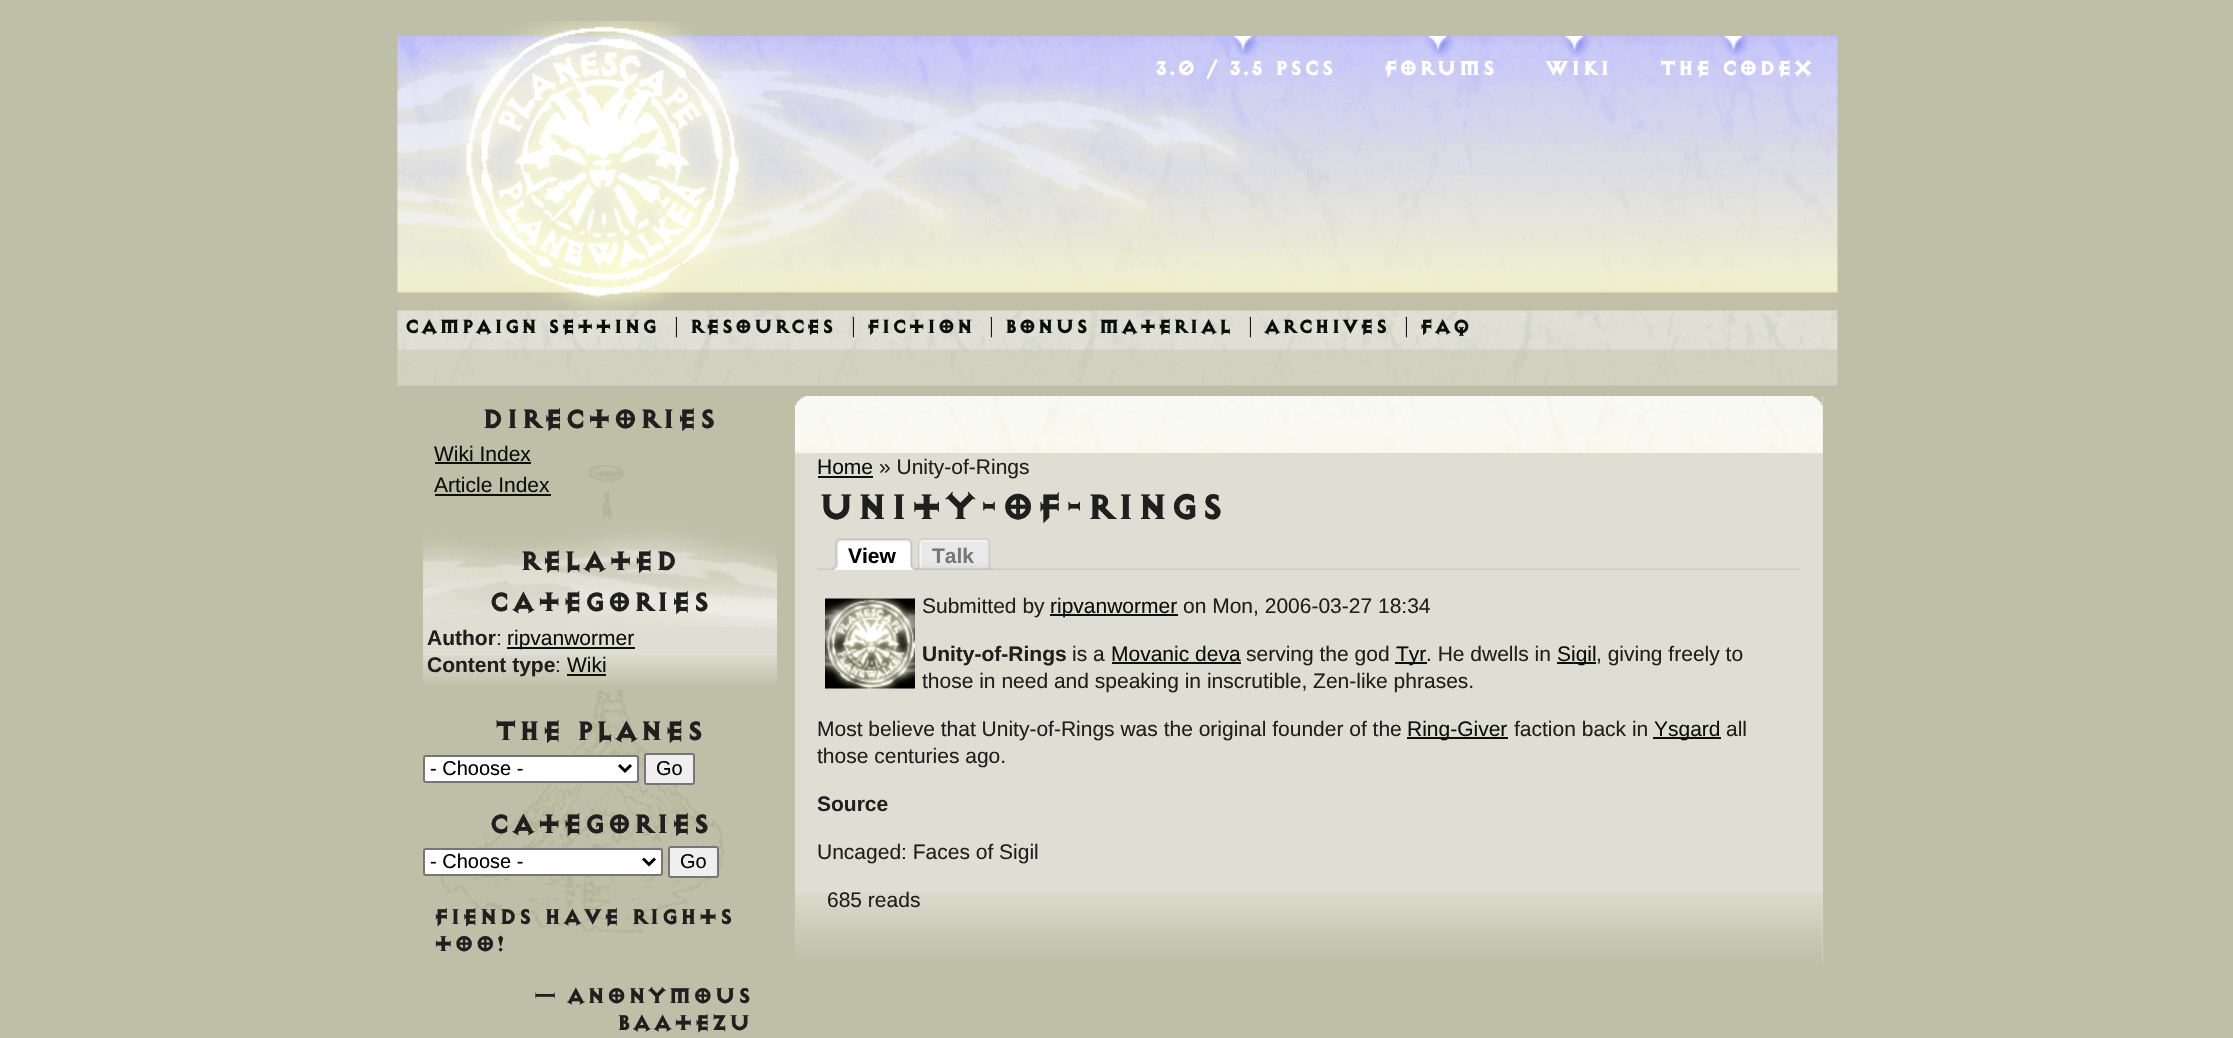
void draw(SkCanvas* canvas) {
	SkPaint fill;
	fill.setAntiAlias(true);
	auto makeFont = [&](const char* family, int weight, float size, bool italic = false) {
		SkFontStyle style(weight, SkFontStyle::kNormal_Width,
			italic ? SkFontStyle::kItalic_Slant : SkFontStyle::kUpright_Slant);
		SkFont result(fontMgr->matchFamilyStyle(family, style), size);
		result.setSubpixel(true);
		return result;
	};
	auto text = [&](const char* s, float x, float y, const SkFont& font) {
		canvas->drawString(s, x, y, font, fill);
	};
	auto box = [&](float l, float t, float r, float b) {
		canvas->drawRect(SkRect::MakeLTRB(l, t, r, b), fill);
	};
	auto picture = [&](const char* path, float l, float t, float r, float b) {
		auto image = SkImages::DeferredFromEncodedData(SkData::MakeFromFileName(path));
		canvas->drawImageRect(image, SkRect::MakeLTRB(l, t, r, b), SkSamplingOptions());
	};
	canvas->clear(0xFFBFBFA8);
	picture("image0.png", 397, 36, 1838, 386);
	picture("image1.png", 397, 21, 1249, 311);
	picture("image2.png", 1230, 36, 1258, 57);
	picture("image3.png", 1425, 36, 1455, 57);
	picture("image4.png", 1561, 36, 1592, 57);
	picture("image5.png", 1720, 36, 1749, 56);
	picture("image6.png", 441, 465, 725, 933);
	fill.setColor(0xFF0C100C);
	box(435, 462, 531, 464);
	box(435, 494, 551, 496);
	fill.setColor(0xFFDEDED2);
	box(423, 627, 777, 655);
	picture("image7.png", 423, 519, 777, 627);
	picture("image8.png", 423, 655, 777, 690);
	fill.setColor(0xFF0C100C);
	box(507, 647, 635, 649);
	box(567, 674, 606, 676);
	fill.setColor(0xFFFFFFFF);
	canvas->drawRoundRect(SkRect::MakeLTRB(424, 756, 638, 782), 2, 2, fill);
	fill.setStyle(SkPaint::kStroke_Style);
	fill.setStrokeWidth(2);
	fill.setColor(0xFF767676);
	canvas->drawRoundRect(SkRect::MakeLTRB(424, 756, 638, 782), 2, 2, fill);
	fill.setStrokeWidth(3);
	fill.setColor(0xFF000000);
	canvas->drawPath(SkPathBuilder().moveTo(619, 765).lineTo(625, 771).lineTo(631, 765).detach(), fill);
	fill.setStyle(SkPaint::kFill_Style);
	fill.setColor(0xFFEFEFEF);
	canvas->drawRoundRect(SkRect::MakeLTRB(645, 754, 694, 784), 2, 2, fill);
	fill.setStyle(SkPaint::kStroke_Style);
	fill.setStrokeWidth(2);
	fill.setColor(0xFF767676);
	canvas->drawRoundRect(SkRect::MakeLTRB(645, 754, 694, 784), 2, 2, fill);
	fill.setStyle(SkPaint::kFill_Style);
	fill.setColor(0xFFFFFFFF);
	canvas->drawRoundRect(SkRect::MakeLTRB(424, 849, 662, 875), 2, 2, fill);
	fill.setStyle(SkPaint::kStroke_Style);
	fill.setColor(0xFF767676);
	canvas->drawRoundRect(SkRect::MakeLTRB(424, 849, 662, 875), 2, 2, fill);
	fill.setStrokeWidth(3);
	fill.setColor(0xFF000000);
	canvas->drawPath(SkPathBuilder().moveTo(643, 858.5f).lineTo(649, 864.5f).lineTo(655, 858.5f).detach(), fill);
	fill.setStyle(SkPaint::kFill_Style);
	fill.setColor(0xFFEFEFEF);
	canvas->drawRoundRect(SkRect::MakeLTRB(669, 847, 718, 877), 2, 2, fill);
	fill.setStyle(SkPaint::kStroke_Style);
	fill.setStrokeWidth(2);
	fill.setColor(0xFF767676);
	canvas->drawRoundRect(SkRect::MakeLTRB(669, 847, 718, 877), 2, 2, fill);
	fill.setStyle(SkPaint::kFill_Style);
	fill.setColor(0xFFDEDED2);
	box(795, 396, 1823, 963);
	picture("image9.png", 795, 396, 1823, 454);
	picture("image10.png", 795, 892, 1823, 963);
	picture("image11.png", 1800, 396, 1823, 453);
	picture("image12.png", 795, 396, 818, 451);
	box(818, 453, 1800, 454);
	fill.setColor(0xFF0C100C);
	box(818, 476, 873, 478);
	picture("image13.png", 817, 568, 1800, 570);
	picture("image14.png", 832, 538, 840, 570);
	picture("image15.png", 840, 538, 915, 570);
	picture("image16.png", 915, 538, 923, 570);
	picture("image17.png", 922, 538, 993, 570);
	picture("image18.png", 825, 598, 915, 689);
	box(1050, 614, 1178, 616);
	box(1112, 662, 1241, 664);
	box(1395, 662, 1427, 664);
	box(1557, 662, 1596, 664);
	box(1407, 737, 1508, 739);
	box(1653, 737, 1721, 739);
	auto font1 = makeFont("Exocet", 900, 24);
	fill.setColor(0xFFFFFFFF);
	text("3.0 / 3.5 PSCS", 1154, 75, font1);
	text("Forums", 1383, 75, font1);
	text("Wiki", 1544, 75, font1);
	text("The Codex", 1659, 75, font1);
	auto font2 = makeFont("Exocet", 900, 22.5f);
	fill.setColor(0xFF0C100C);
	text("Campaign Setting", 404, 333, font2);
	text("| Resources", 673, 333, font2);
	text("| Fiction", 850, 333, font2);
	text("| Bonus Material", 988, 333, font2);
	text("| Archives", 1247, 333, font2);
	text("| FAQ", 1403, 333, font2);
	auto font3 = makeFont("Exocet", 900, 31.5f);
	fill.setColor(0xFF1F1F1F);
	text("Directories", 481, 428, font3);
	auto font4 = makeFont("Liberation Sans", 400, 21);
	fill.setColor(0xFF0C100C);
	text("Wiki Index", 434, 461, font4);
	text("Article Index", 434, 492, font4);
	fill.setColor(0xFF1F1F1F);
	text("Related", 519, 570, font3);
	text("categories", 488, 611, font3);
	auto font5 = makeFont("Liberation Sans", 700, 21);
	text("Author", 427, 645, font5);
	text(":", 496, 645, font4);
	fill.setColor(0xFF0C100C);
	text("ripvanwormer", 507, 645, font4);
	fill.setColor(0xFF1F1F1F);
	text("Content type", 427, 672, font5);
	text(":", 555, 672, font4);
	fill.setColor(0xFF0C100C);
	text("Wiki", 567, 672, font4);
	fill.setColor(0xFF1F1F1F);
	text("The Planes", 494, 740, font3);
	auto font6 = makeFont("Liberation Sans", 400, 20);
	fill.setColor(0xFF000000);
	text("- Choose -", 430, 775, font6);
	text("Go", 656, 775, font6);
	fill.setColor(0xFF1F1F1F);
	text("Categories", 488, 833, font3);
	fill.setColor(0xFF000000);
	text("- Choose -", 430, 868, font6);
	text("Go", 680, 868, font6);
	auto font7 = makeFont("Exocet", 900, 25.25f);
	fill.setColor(0xFF1F1F1F);
	text("Fiends have rights", 433, 924, font7);
	text("too!", 433, 951, font7);
	text("— Anonymous", 535, 1003, font7);
	text("Baatezu", 616, 1030, font7);
	fill.setColor(0xFF0C100C);
	text("Home", 817, 474, font4);
	fill.setColor(0xFF1F1F1F);
	text("» Unity-of-Rings", 879, 474, font4);
	auto font8 = makeFont("Exocet", 900, 42);
	text("Unity-of-Rings", 817, 519, font8);
	fill.setColor(0xFF000000);
	text("View", 848, 563, font5);
	fill.setColor(0xFF777777);
	text("Talk", 932, 563, font5);
	fill.setColor(0xFF1F1F1F);
	text("Submitted by", 922, 613, font4);
	fill.setColor(0xFF0C100C);
	text("ripvanwormer", 1050, 613, font4);
	fill.setColor(0xFF1F1F1F);
	text("on Mon, 2006-03-27 18:34", 1183, 613, font4);
	text("Unity-of-Rings", 922, 661, font5);
	text("is a", 1072, 661, font4);
	fill.setColor(0xFF0C100C);
	text("Movanic deva", 1111, 661, font4);
	fill.setColor(0xFF1F1F1F);
	text("serving the god", 1246, 661, font4);
	fill.setColor(0xFF0C100C);
	text("Tyr", 1396, 661, font4);
	fill.setColor(0xFF1F1F1F);
	text(". He dwells in", 1426, 661, font4);
	fill.setColor(0xFF0C100C);
	text("Sigil", 1557, 661, font4);
	fill.setColor(0xFF1F1F1F);
	text(", giving freely to", 1596, 661, font4);
	text("those in need and speaking in inscrutible, Zen-like phrases.", 922, 688, font4);
	text("Most believe that Unity-of-Rings was the original founder of the", 817, 736, font4);
	fill.setColor(0xFF0C100C);
	text("Ring-Giver", 1407, 736, font4);
	fill.setColor(0xFF1F1F1F);
	text("faction back in", 1514, 736, font4);
	fill.setColor(0xFF0C100C);
	text("Ysgard", 1654, 736, font4);
	fill.setColor(0xFF1F1F1F);
	text("all", 1726, 736, font4);
	text("those centuries ago.", 817, 763, font4);
	text("Source", 817, 811, font5);
	text("Uncaged: Faces of Sigil", 817, 859, font4);
	text("685 reads", 827, 907, font4);
}
